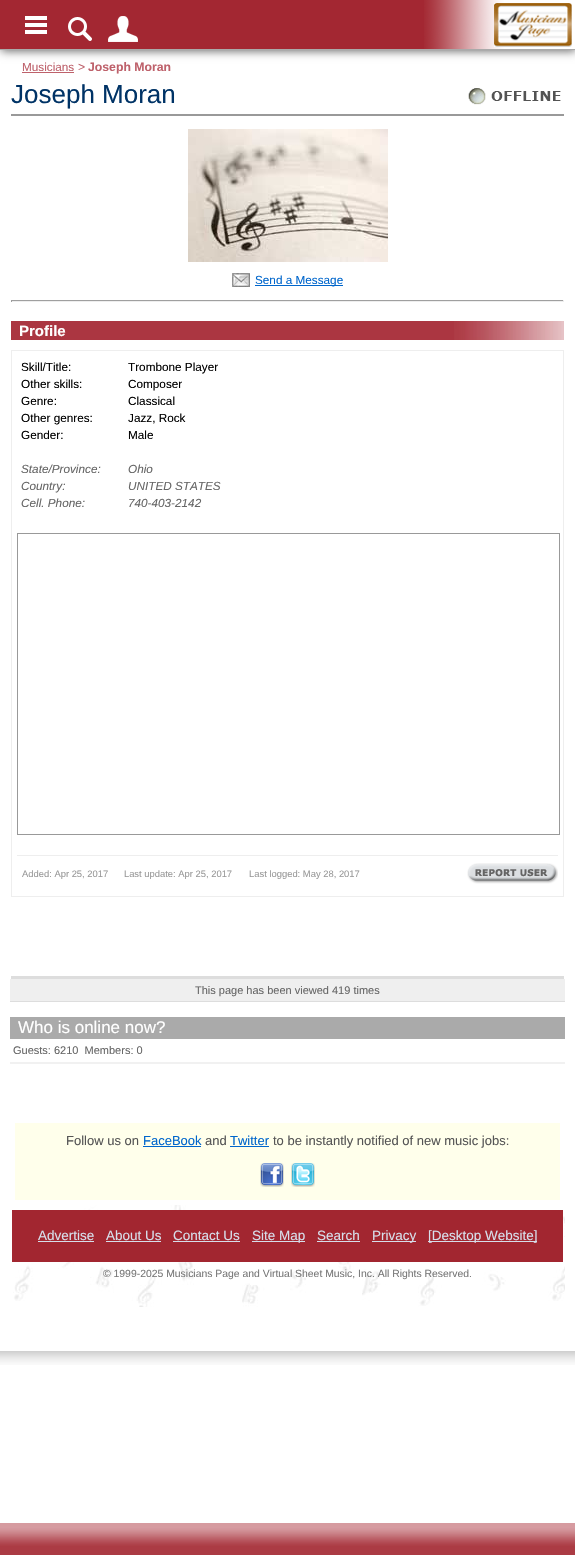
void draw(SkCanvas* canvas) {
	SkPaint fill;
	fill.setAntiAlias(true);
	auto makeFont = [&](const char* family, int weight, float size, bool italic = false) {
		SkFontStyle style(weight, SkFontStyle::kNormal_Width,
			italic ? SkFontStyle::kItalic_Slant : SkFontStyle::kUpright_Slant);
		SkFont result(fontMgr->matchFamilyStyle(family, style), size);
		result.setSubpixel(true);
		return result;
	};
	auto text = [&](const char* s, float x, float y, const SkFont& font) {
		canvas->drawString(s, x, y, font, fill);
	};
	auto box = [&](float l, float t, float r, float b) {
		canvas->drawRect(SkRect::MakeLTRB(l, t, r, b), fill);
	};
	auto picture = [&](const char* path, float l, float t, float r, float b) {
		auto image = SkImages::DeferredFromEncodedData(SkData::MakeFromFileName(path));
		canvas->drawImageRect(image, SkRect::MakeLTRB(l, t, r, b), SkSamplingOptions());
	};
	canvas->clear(0xFFFFFFFF);
	fill.setColor(0xFF666666);
	fill.setMaskFilter(SkMaskFilter::MakeBlur(kNormal_SkBlurStyle, 4.5f));
	canvas->drawRect(SkRect::MakeLTRB(1, 1, 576, 51), fill);
	fill.setMaskFilter(nullptr);
	fill.setColor(0xFFA32732);
	box(0, 0, 424, 49);
	picture("image0.png", 424, 0, 575, 49);
	fill.setColor(0xFFAAAAAA);
	box(0, 49, 575, 50);
	picture("image1.png", 25, 16, 47, 34);
	picture("image2.png", 68, 17, 92, 41);
	picture("image3.png", 108, 16, 138, 42);
	picture("image4.png", 494, 3, 572, 47);
	fill.setColor(0xFFBE616B);
	box(22, 72, 74, 73);
	fill.setColor(0xFFDDDDDD);
	box(11, 976, 564, 979);
	fill.setColor(0xFF999999);
	box(11, 114, 564, 116);
	picture("image5.png", 468, 88, 561, 105);
	picture("image6.png", 188, 129, 388, 262);
	picture("image7.png", 232, 273, 250, 287);
	fill.setColor(0xFF0066CC);
	box(255, 285, 343, 286);
	fill.setColor(0xFF9F9F9F);
	box(11, 300, 564, 301);
	fill.setColor(0xFFEEEEEE);
	box(563, 300, 564, 302);
	box(11, 301, 564, 302);
	fill.setColor(0xFF9F9F9F);
	box(11, 300, 12, 302);
	fill.setColor(0xFFAB3641);
	box(11, 321, 454, 340);
	picture("image8.png", 454, 321, 564, 340);
	fill.setStyle(SkPaint::kStroke_Style);
	fill.setStrokeWidth(1);
	fill.setColor(0xFFEEEEEE);
	canvas->drawRect(SkRect::MakeLTRB(11.5f, 350.5f, 563.5f, 896.5f), fill);
	fill.setColor(0xFF999999);
	canvas->drawRect(SkRect::MakeLTRB(17.5f, 533.5f, 559.5f, 834.5f), fill);
	fill.setStyle(SkPaint::kFill_Style);
	fill.setColor(0xFFEEEEEE);
	box(17, 855, 558, 856);
	picture("image9.png", 467, 863, 558, 884);
	fill.setColor(0xFFEFEFEF);
	box(10, 979, 565, 1001);
	fill.setColor(0xFFDDDDDD);
	box(10, 1001, 565, 1002);
	fill.setColor(0xFFAAAAAA);
	box(10, 1017, 565, 1039);
	fill.setColor(0xFFF1F1F1);
	box(10, 1062, 565, 1064);
	fill.setColor(0xFFFFFFEB);
	box(15, 1123, 560, 1200);
	fill.setColor(0xFF0066CC);
	box(143, 1146, 201, 1147);
	box(230, 1146, 269, 1147);
	picture("image10.png", 260, 1163, 284, 1187);
	picture("image11.png", 291, 1163, 315, 1187);
	picture("image12.png", 13, 1205, 565, 1307);
	fill.setColor(0xFFA22630);
	box(12, 1210, 563, 1262);
	fill.setColor(0xFFD7DEEA);
	box(38, 1241, 94, 1242);
	box(106, 1241, 161, 1242);
	box(173, 1241, 240, 1242);
	box(252, 1241, 305, 1242);
	box(317, 1241, 360, 1242);
	box(372, 1241, 416, 1242);
	box(428, 1241, 537, 1242);
	picture("image13.png", 0, 1351, 575, 1365);
	picture("image14.png", 0, 1523, 575, 1555);
	auto font1 = makeFont("Liberation Sans", 400, 11.75f);
	fill.setColor(0xFFBE616B);
	text("Musicians", 22, 71, font1);
	auto font2 = makeFont("Liberation Sans", 400, 12.25f);
	text(">", 78, 71, font2);
	auto font3 = makeFont("Liberation Sans", 700, 12.25f);
	text("Joseph Moran", 88, 71, font3);
	auto font4 = makeFont("Liberation Sans", 400, 26);
	fill.setColor(0xFF003366);
	text("Joseph Moran", 11, 103, font4);
	fill.setColor(0xFF0066CC);
	text("Send a Message", 255, 284, font1);
	auto font5 = makeFont("Liberation Sans", 700, 15);
	fill.setColor(0xFFFFFFFF);
	text("Profile", 19, 336, font5);
	fill.setColor(0xFF000000);
	text("Skill/Title:", 21, 371, font1);
	text("Trombone Player", 128, 371, font1);
	text("Other skills:", 21, 388, font1);
	text("Composer", 128, 388, font1);
	text("Genre:", 21, 405, font1);
	text("Classical", 128, 405, font1);
	text("Other genres:", 21, 422, font1);
	text("Jazz, Rock", 128, 422, font1);
	text("Gender:", 21, 439, font1);
	text("Male", 128, 439, font1);
	auto font6 = makeFont("Liberation Sans", 400, 11.75f, true);
	fill.setColor(0xFF666666);
	text("State/Province:", 21, 473, font6);
	text("Ohio", 128, 473, font6);
	text("Country:", 21, 490, font6);
	text("UNITED STATES", 128, 490, font6);
	text("Cell. Phone:", 21, 507, font6);
	text("740-403-2142", 128, 507, font6);
	auto font7 = makeFont("Liberation Sans", 400, 9.4f);
	fill.setColor(0xFF999999);
	text("Added: Apr 25, 2017      Last update: Apr 25, 2017", 22, 877, font7);
	text("Last logged: May 28, 2017", 249, 877, font7);
	auto font8 = makeFont("Liberation Sans", 400, 11);
	fill.setColor(0xFF666666);
	text("This page has been viewed 419 times", 195, 994, font8);
	auto font9 = makeFont("Liberation Sans", 400, 17);
	fill.setColor(0xFFFFFFFF);
	text("Who is online now?", 18, 1033, font9);
	fill.setColor(0xFF666666);
	text("Guests: 6210  Members: 0", 13, 1054, font8);
	auto font10 = makeFont("Liberation Sans", 400, 13);
	fill.setColor(0xFF555555);
	text("Follow us on", 66, 1145, font10);
	fill.setColor(0xFF0066CC);
	text("FaceBook", 143, 1145, font10);
	fill.setColor(0xFF555555);
	text("and", 205, 1145, font10);
	fill.setColor(0xFF0066CC);
	text("Twitter", 230, 1145, font10);
	fill.setColor(0xFF555555);
	text("to be instantly notified of new music jobs:", 273, 1145, font10);
	auto font11 = makeFont("Liberation Sans", 400, 13.5f);
	fill.setColor(0xFFD7DEEA);
	text("Advertise", 38, 1240, font11);
	text("About Us", 106, 1240, font11);
	text("Contact Us", 173, 1240, font11);
	text("Site Map", 252, 1240, font11);
	text("Search", 317, 1240, font11);
	text("Privacy", 372, 1240, font11);
	text("[Desktop Website]", 428, 1240, font11);
	auto font12 = makeFont("Liberation Sans", 400, 10.4f);
	fill.setColor(0xFF777777);
	text("© 1999-2025 Musicians Page and Virtual Sheet Music, Inc. All Rights Reserved.", 103, 1277, font12);
}
